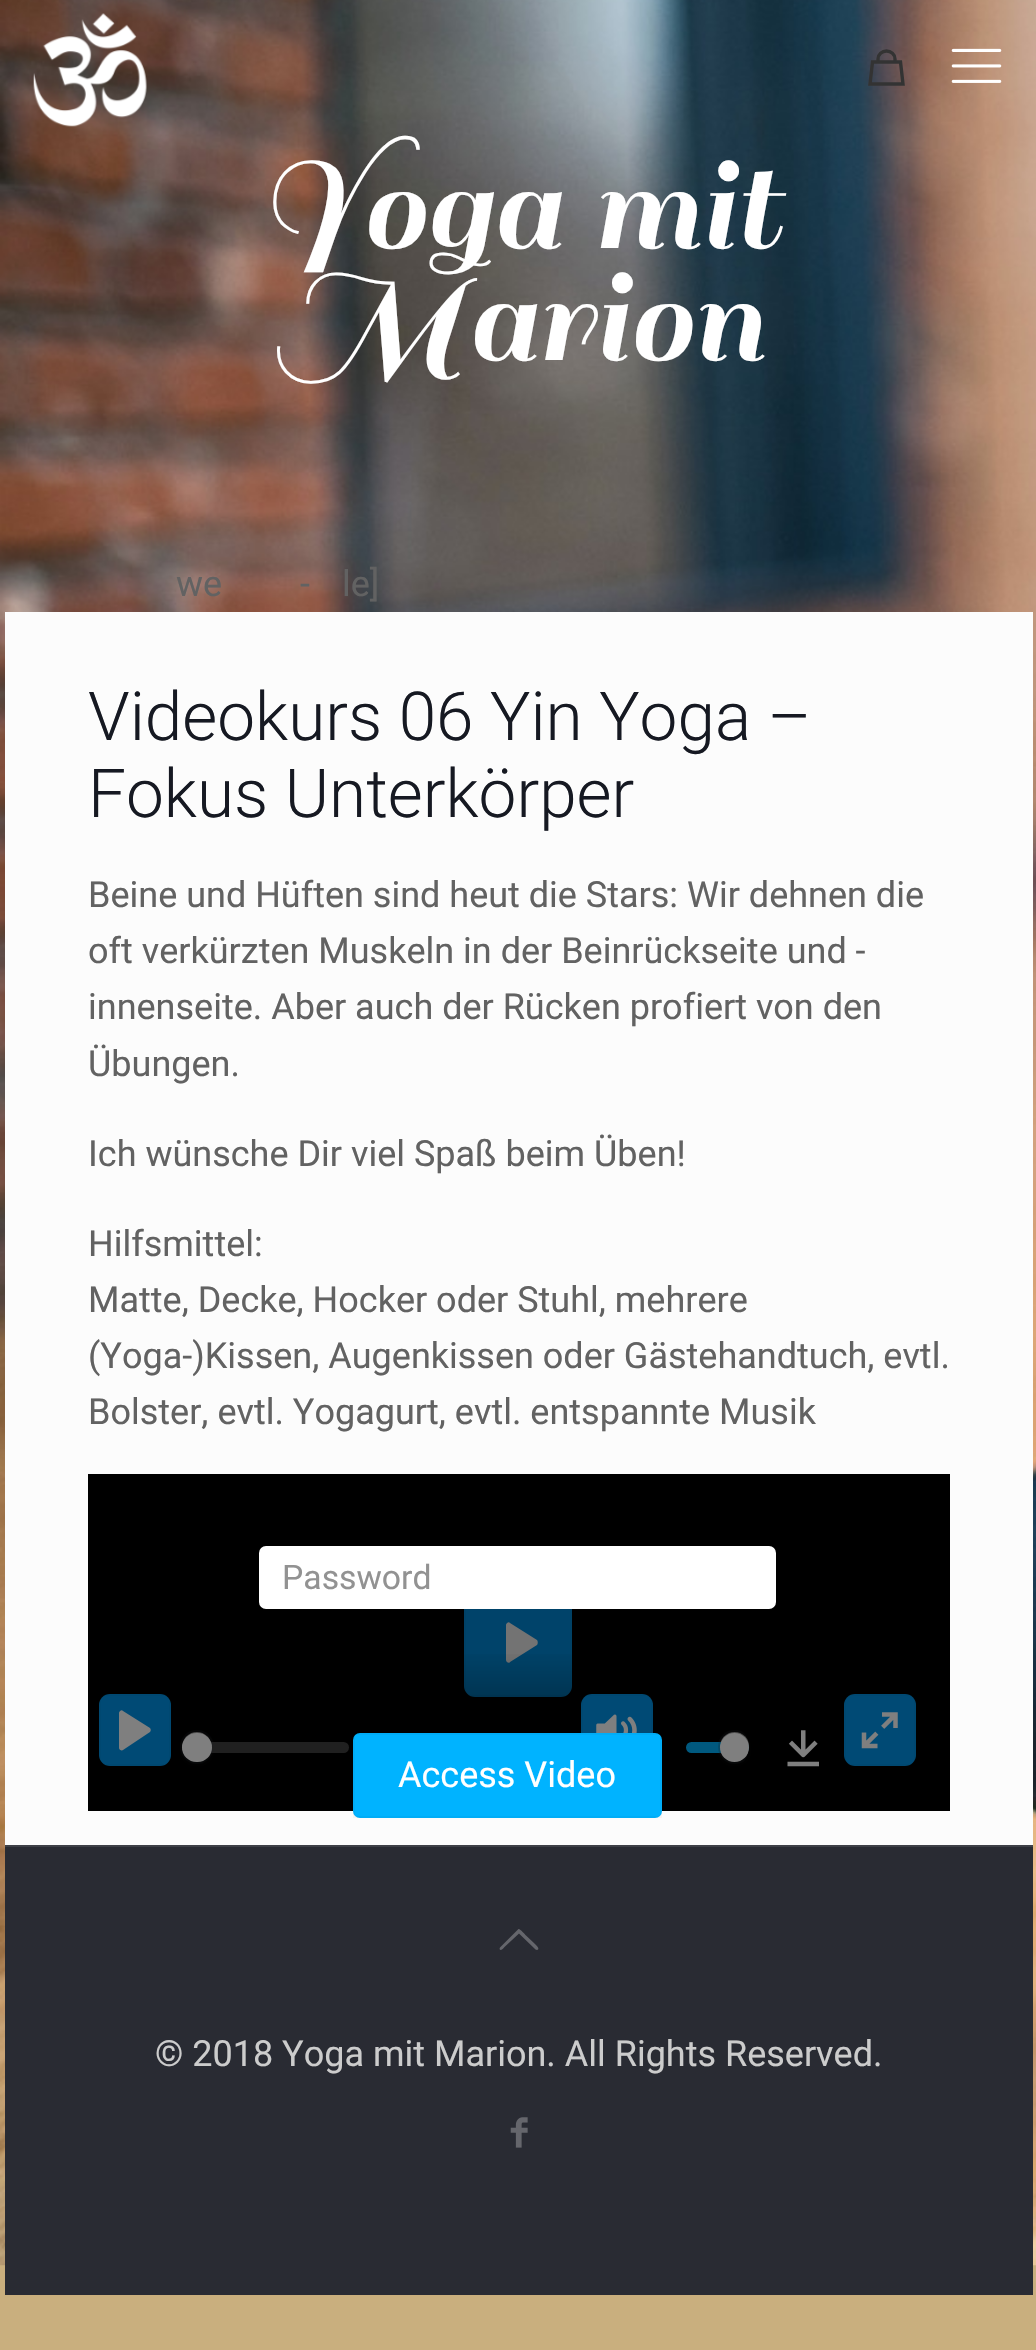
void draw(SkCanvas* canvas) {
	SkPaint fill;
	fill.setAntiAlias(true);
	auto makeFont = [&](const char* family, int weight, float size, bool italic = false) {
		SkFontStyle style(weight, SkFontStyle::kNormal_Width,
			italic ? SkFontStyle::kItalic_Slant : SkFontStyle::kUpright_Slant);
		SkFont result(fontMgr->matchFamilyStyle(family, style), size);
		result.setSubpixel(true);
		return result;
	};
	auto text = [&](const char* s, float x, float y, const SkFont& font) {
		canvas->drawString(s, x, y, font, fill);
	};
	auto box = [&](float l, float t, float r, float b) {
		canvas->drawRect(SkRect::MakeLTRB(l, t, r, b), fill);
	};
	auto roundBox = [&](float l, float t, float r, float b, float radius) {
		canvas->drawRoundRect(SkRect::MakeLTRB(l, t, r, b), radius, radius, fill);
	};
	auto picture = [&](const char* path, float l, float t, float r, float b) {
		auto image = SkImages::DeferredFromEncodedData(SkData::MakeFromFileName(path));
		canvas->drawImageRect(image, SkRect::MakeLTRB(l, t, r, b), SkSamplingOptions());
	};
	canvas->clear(0xFFC9AF7E);
	picture("image0.png", 0, 0, 1036, 2266);
	picture("image1.png", 33, 13, 147, 127);
	picture("image2.png", 951, 48, 1002, 83);
	fill.setStyle(SkPaint::kStroke_Style);
	fill.setStrokeWidth(3.4f);
	fill.setColor(0xFF333333);
	canvas->drawPath(SkPathBuilder().moveTo(903, 84).lineTo(870, 84).lineTo(872.5f, 62).lineTo(900.5f, 62).close().moveTo(878, 62).lineTo(878, 59).cubicTo(878, 54.5f, 882, 51, 886.5f, 51).cubicTo(891, 51, 895, 54.5f, 895, 59).lineTo(895, 62).detach(), fill);
	fill.setStyle(SkPaint::kFill_Style);
	fill.setColor(0xFFFCFCFC);
	box(5, 612, 1033, 1845);
	fill.setColor(0xFF000000);
	box(88, 1474, 950, 1811);
	fill.setColor(0xFF0086D4);
	roundBox(464, 1589, 572, 1697, 11);
	fill.setStyle(SkPaint::kStroke_Style);
	fill.setStrokeWidth(2);
	fill.setColor(0x08000000);
	canvas->drawRect(SkRect::MakeLTRB(465, 1590, 571, 1696), fill);
	fill.setStyle(SkPaint::kFill_Style);
	fill.setColor(0xFFE6E6E6);
	canvas->drawPath(SkPathBuilder().moveTo(537, 1640).lineTo(510, 1623).cubicTo(509, 1621, 506, 1623, 506, 1625).lineTo(506, 1660).cubicTo(506, 1662, 509, 1664, 510, 1662).lineTo(537, 1645).cubicTo(538, 1644, 538, 1641, 537, 1640).close().detach(), fill);
	picture("image6.png", 180, 1730, 750, 1764);
	{
		const SkColor colors[] = {0x00000000, 0xBF000000};
		const float stops[] = {0, 1};
		const SkPoint ends[] = {{519, 1649}, {519, 1811}};
		fill.setShader(SkGradientShader::MakeLinear(ends, colors, stops, 2, SkTileMode::kClamp));
		fill.setAlpha(255);
	}
	box(180, 1654, 750, 1764);
	fill.setShader(nullptr);
	fill.setColor(0xFF0095EB);
	roundBox(99, 1694, 171, 1766, 11);
	fill.setStyle(SkPaint::kStroke_Style);
	fill.setColor(0x08000000);
	canvas->drawRect(SkRect::MakeLTRB(100, 1695, 170, 1765), fill);
	fill.setStyle(SkPaint::kFill_Style);
	fill.setColor(0xFFFFFFFF);
	canvas->drawPath(SkPathBuilder().moveTo(150, 1728).lineTo(123, 1711).cubicTo(122, 1709, 119, 1711, 119, 1713).lineTo(119, 1748).cubicTo(119, 1750, 122, 1751, 123, 1750).lineTo(150, 1732).cubicTo(151, 1731, 151, 1729, 150, 1728).close().detach(), fill);
	fill.setColor(0x40FFFFFF);
	roundBox(182, 1742, 349, 1753, 5.5f);
	fill.setStyle(SkPaint::kStroke_Style);
	fill.setColor(0x3323282F);
	canvas->drawCircle(197, 1747, 16, fill);
	fill.setStyle(SkPaint::kFill_Style);
	fill.setColor(0x2623282F);
	fill.setMaskFilter(SkMaskFilter::MakeBlur(kNormal_SkBlurStyle, 1));
	canvas->drawRoundRect(SkRect::MakeLTRB(182, 1735, 212, 1764), 14.5f, 14.5f, fill);
	fill.setMaskFilter(nullptr);
	fill.setColor(0xFFFFFFFF);
	roundBox(182, 1733, 212, 1762, 14.5f);
	fill.setColor(0xFF0095EB);
	roundBox(581, 1694, 653, 1766, 11);
	fill.setStyle(SkPaint::kStroke_Style);
	fill.setColor(0x08000000);
	canvas->drawRect(SkRect::MakeLTRB(582, 1695, 652, 1765), fill);
	picture("image3.png", 596, 1714, 637, 1733);
	canvas->save();
	canvas->clipPath(SkPathBuilder().moveTo(707.5f, 1726).lineTo(727.5f, 1726).cubicTo(739.5f, 1726, 749, 1735.5f, 749, 1747.5f).cubicTo(749, 1759.5f, 739.5f, 1769, 727.5f, 1769).lineTo(707.5f, 1769).cubicTo(695.5f, 1769, 686, 1759.5f, 686, 1747.5f).cubicTo(686, 1735.5f, 695.5f, 1726, 707.5f, 1726).close().detach(), true);
	fill.setStyle(SkPaint::kFill_Style);
	fill.setColor(0xFF00B3FF);
	roundBox(686, 1742, 749, 1753, 5.5f);
	canvas->restore();
	fill.setColor(0x3323282F);
	canvas->drawPath(SkPathBuilder().moveTo(735, 1730).cubicTo(725.5f, 1730, 718, 1737.5f, 718, 1747).cubicTo(718, 1756.5f, 725.5f, 1764, 735, 1764).cubicTo(738, 1764, 741, 1763, 744, 1761.5f).cubicTo(745.5f, 1759.5f, 746.5f, 1757.5f, 747.5f, 1755).cubicTo(745, 1759.5f, 740.5f, 1762, 735, 1762).cubicTo(726.5f, 1762, 720, 1755.5f, 720, 1747).cubicTo(720, 1738.5f, 726.5f, 1732, 735, 1732).cubicTo(739.5f, 1732, 743.5f, 1734, 746.5f, 1737.5f).cubicTo(743.5f, 1732, 741, 1730, 735, 1730).close().detach(), fill);
	canvas->save();
	canvas->clipPath(SkPathBuilder(SkPathFillType::kEvenOdd).moveTo(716, 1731).lineTo(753, 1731).lineTo(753, 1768).lineTo(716, 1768).close().moveTo(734.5f, 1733).cubicTo(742.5f, 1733, 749, 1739.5f, 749, 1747.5f).cubicTo(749, 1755.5f, 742.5f, 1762, 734.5f, 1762).cubicTo(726.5f, 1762, 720, 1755.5f, 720, 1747.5f).cubicTo(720, 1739.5f, 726.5f, 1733, 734.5f, 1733).close().detach(), true);
	fill.setColor(0x2623282F);
	fill.setMaskFilter(SkMaskFilter::MakeBlur(kNormal_SkBlurStyle, 1));
	canvas->drawRoundRect(SkRect::MakeLTRB(720, 1735, 749, 1764), 14.5f, 14.5f, fill);
	fill.setMaskFilter(nullptr);
	canvas->restore();
	canvas->save();
	canvas->clipPath(SkPathBuilder().moveTo(707.5f, 1726).lineTo(727.5f, 1726).cubicTo(739.5f, 1726, 749, 1735.5f, 749, 1747.5f).cubicTo(749, 1759.5f, 739.5f, 1769, 727.5f, 1769).lineTo(707.5f, 1769).cubicTo(695.5f, 1769, 686, 1759.5f, 686, 1747.5f).cubicTo(686, 1735.5f, 695.5f, 1726, 707.5f, 1726).close().detach(), true);
	fill.setColor(0xFFFFFFFF);
	canvas->drawCircle(734.5f, 1747.5f, 14.5f, fill);
	canvas->restore();
	picture("image4.png", 787, 1730, 819, 1767);
	fill.setColor(0xFF0095EB);
	roundBox(844, 1694, 916, 1766, 11);
	fill.setStyle(SkPaint::kStroke_Style);
	fill.setColor(0x08000000);
	canvas->drawRect(SkRect::MakeLTRB(845, 1695, 915, 1765), fill);
	picture("image5.png", 861, 1712, 898, 1749);
	fill.setStyle(SkPaint::kFill_Style);
	fill.setColor(0x80000000);
	box(99, 1589, 916, 1767);
	fill.setColor(0xFFFFFFFF);
	roundBox(259, 1546, 776, 1609, 7);
	fill.setColor(0xFF00B3FF);
	roundBox(353, 1733, 662, 1818, 7);
	fill.setStyle(SkPaint::kStroke_Style);
	fill.setColor(0x08000000);
	canvas->drawRect(SkRect::MakeLTRB(354, 1734, 661, 1817), fill);
	fill.setStyle(SkPaint::kFill_Style);
	fill.setColor(0xFF292B33);
	box(5, 1847, 1033, 2295);
	fill.setColor(0xFF3E4047);
	box(5, 1845, 1033, 1847);
	fill.setColor(0xFF65666C);
	canvas->drawPath(SkPathBuilder().moveTo(535.5f, 1949.5f).lineTo(519, 1933.5f).lineTo(505, 1946.5f).cubicTo(504, 1947.5f, 501, 1952, 499.5f, 1949).lineTo(500, 1947.5f).lineTo(518.5f, 1929).cubicTo(520, 1928.5f, 525, 1934.5f, 526, 1935.5f).lineTo(535, 1944).cubicTo(535, 1944.5f, 541, 1949, 537, 1950).close().detach(), fill);
	picture("image7.png", 510, 2117, 528, 2148);
	auto font1 = makeFont("Sail", 400, 144);
	fill.setColor(0xFFFFFFFF);
	text("Yoga mit", 258, 248, font1);
	text("Marion", 274, 360, font1);
	auto font2 = makeFont("Roboto", 400, 36);
	fill.setColor(0xFF626262);
	text("we", 176, 596, font2);
	text("-", 300, 596, font2);
	text("le]", 342, 596, font2);
	auto font3 = makeFont("Roboto", 300, 67.5f);
	fill.setColor(0xFF161922);
	text("Videokurs 06 Yin Yoga –", 88, 740, font3);
	text("Fokus Unterkörper", 88, 817, font3);
	fill.setColor(0xFF626262);
	text("Beine und Hüften sind heut die Stars: Wir dehnen die", 88, 907, font2);
	text("oft verkürzten Muskeln in der Beinrückseite und -", 88, 963, font2);
	text("innenseite. Aber auch der Rücken profiert von den", 88, 1019, font2);
	text("Übungen.", 88, 1076, font2);
	text("Ich wünsche Dir viel Spaß beim Üben!", 88, 1166, font2);
	text("Hilfsmittel:", 88, 1256, font2);
	text("Matte, Decke, Hocker oder Stuhl, mehrere", 88, 1312, font2);
	text("(Yoga-)Kissen, Augenkissen oder Gästehandtuch, evtl.", 88, 1368, font2);
	text("Bolster, evtl. Yogagurt, evtl. entspannte Musik", 88, 1424, font2);
	auto font4 = makeFont("Roboto", 400, 33.75f);
	fill.setColor(0xFF929292);
	text("Password", 282, 1589, font4);
	fill.setColor(0xFFFFFFFF);
	text("Access Video", 398, 1787, font2);
	fill.setColor(0xFFCCCCCC);
	text("© 2018 Yoga mit Marion. All Rights Reserved.", 155, 2066, font2);
}
